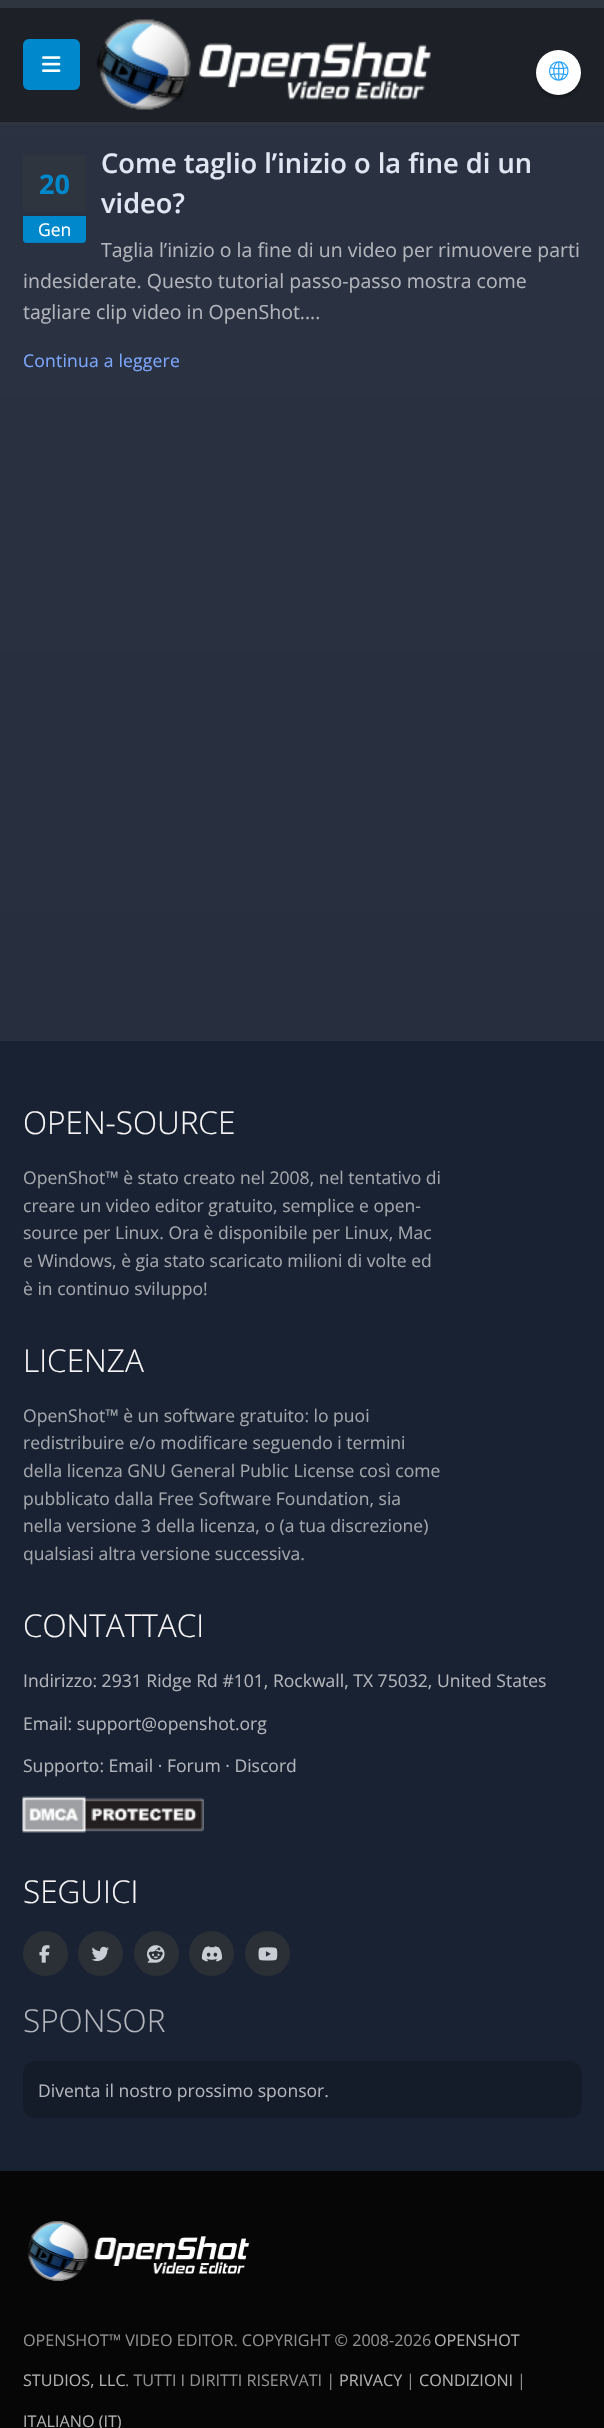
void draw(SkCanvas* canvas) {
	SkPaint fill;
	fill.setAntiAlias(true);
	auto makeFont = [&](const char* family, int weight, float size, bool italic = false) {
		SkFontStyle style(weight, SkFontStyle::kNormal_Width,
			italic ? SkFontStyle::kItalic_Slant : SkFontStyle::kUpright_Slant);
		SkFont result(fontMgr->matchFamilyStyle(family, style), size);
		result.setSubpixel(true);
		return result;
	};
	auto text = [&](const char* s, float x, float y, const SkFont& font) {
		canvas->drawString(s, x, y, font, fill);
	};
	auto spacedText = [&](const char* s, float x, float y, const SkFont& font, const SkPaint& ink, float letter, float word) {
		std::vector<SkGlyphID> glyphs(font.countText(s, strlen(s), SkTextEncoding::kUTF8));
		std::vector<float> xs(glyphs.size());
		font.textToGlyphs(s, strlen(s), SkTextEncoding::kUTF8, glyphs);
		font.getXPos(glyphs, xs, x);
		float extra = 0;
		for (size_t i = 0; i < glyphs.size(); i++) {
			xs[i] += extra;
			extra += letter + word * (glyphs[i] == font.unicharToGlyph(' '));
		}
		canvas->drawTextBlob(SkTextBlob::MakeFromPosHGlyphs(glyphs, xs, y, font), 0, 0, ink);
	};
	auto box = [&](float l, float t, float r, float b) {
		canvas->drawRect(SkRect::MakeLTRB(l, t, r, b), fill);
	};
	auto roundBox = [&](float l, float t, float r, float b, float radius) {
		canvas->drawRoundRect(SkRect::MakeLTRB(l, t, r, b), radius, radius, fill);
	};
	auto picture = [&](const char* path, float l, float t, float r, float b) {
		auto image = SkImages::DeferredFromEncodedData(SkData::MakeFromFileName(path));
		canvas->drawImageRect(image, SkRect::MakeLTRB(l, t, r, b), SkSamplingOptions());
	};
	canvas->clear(0xFFFFFFFF);
	{
		const SkColor colors[] = {0xFF2D3545, 0xFF272F3F};
		const float stops[] = {0, 1};
		const SkPoint ends[] = {{302, -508}, {302, 1041}};
		fill.setShader(SkGradientShader::MakeLinear(ends, colors, stops, 2, SkTileMode::kClamp));
		fill.setAlpha(255);
	}
	box(0, 125, 604, 1041);
	fill.setShader(nullptr);
	fill.setColor(0x1A000000);
	fill.setMaskFilter(SkMaskFilter::MakeBlur(kNormal_SkBlurStyle, 2));
	canvas->drawRect(SkRect::MakeLTRB(0, 0, 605, 125), fill);
	fill.setMaskFilter(nullptr);
	fill.setColor(0xFF1D2127);
	box(0, 8, 604, 122);
	fill.setColor(0xFF2E353E);
	box(0, 0, 604, 8);
	box(0, 122, 604, 125);
	picture("image0.png", 96, 19, 431, 110);
	fill.setColor(0xFF0088CC);
	roundBox(23, 39, 80, 90, 6);
	picture("image1.png", 42, 56, 61, 72);
	fill.setColor(0x4D000000);
	fill.setMaskFilter(SkMaskFilter::MakeBlur(kNormal_SkBlurStyle, 1.5f));
	canvas->drawRoundRect(SkRect::MakeLTRB(536, 53, 581, 98), 22.5f, 22.5f, fill);
	fill.setMaskFilter(nullptr);
	fill.setColor(0xFFFFFFFF);
	canvas->drawCircle(558.5f, 72.5f, 22.5f, fill);
	picture("image2.png", 549, 61, 569, 81);
	fill.setColor(0xFF2E353E);
	box(23, 155, 86, 212);
	fill.setColor(0xFF0088CC);
	canvas->drawPath(SkPathBuilder().moveTo(23, 216).lineTo(86, 216).lineTo(86, 240).cubicTo(86, 241.5f, 84.5f, 243, 83, 243).lineTo(26, 243).cubicTo(24.5f, 243, 23, 241.5f, 23, 240).close().detach(), fill);
	fill.setColor(0x12000000);
	canvas->drawPath(SkPathBuilder().moveTo(23, 241).cubicTo(23, 242, 25, 243, 26, 243).lineTo(83, 243).cubicTo(85, 243, 86, 242, 86, 240).lineTo(86, 238).cubicTo(86, 240, 84, 242, 82, 242).lineTo(26, 242).cubicTo(25, 242, 24, 241, 23, 241).close().detach(), fill);
	fill.setColor(0xFF192233);
	box(0, 1041, 604, 2171);
	picture("image3.png", 22, 1796, 204, 1833);
	fill.setColor(0xFF2B2F36);
	canvas->drawCircle(45.5f, 1953.5f, 22.5f, fill);
	picture("image4.png", 39, 1945, 50, 1963);
	canvas->drawCircle(100.5f, 1953.5f, 22.5f, fill);
	picture("image5.png", 91, 1946, 109, 1961);
	canvas->drawCircle(156.5f, 1953.5f, 22.5f, fill);
	picture("image6.png", 147, 1945, 165, 1963);
	canvas->drawCircle(211.5f, 1953.5f, 22.5f, fill);
	picture("image7.png", 201, 1946, 222, 1962);
	canvas->drawCircle(267.5f, 1953.5f, 22.5f, fill);
	picture("image8.png", 258, 1947, 278, 1961);
	fill.setColor(0xFF141B29);
	roundBox(23, 2061, 582, 2118, 12);
	fill.setColor(0xFF060606);
	box(0, 2171, 604, 2428);
	picture("image9.png", 27, 2221, 249, 2281);
	auto font1 = makeFont("Open Sans", 700, 27);
	fill.setColor(0xFF0088CC);
	text("20", 39, 194, font1);
	auto font2 = makeFont("Open Sans", 400, 17.55f);
	fill.setColor(0xFFFFFFFF);
	text("Gen", 38, 236, font2);
	auto font3 = makeFont("Open Sans", 600, 27.25f);
	fill.setColor(0xFFE0E6F2);
	text("Come taglio l’inizio o la fine di un", 101, 173, font3);
	text("video?", 101, 213, font3);
	auto font4 = makeFont("Open Sans", 400, 19.5f);
	fill.setColor(0xFFB2B5BB);
	text("Taglia l’inizio o la fine di un video per rimuovere parti", 101, 257, font4);
	text("indesiderate. Questo tutorial passo-passo mostra come", 23, 288, font4);
	text("tagliare clip video in OpenShot....", 23, 319, font4);
	fill.setColor(0xFF7DA7FF);
	spacedText("Continua a leggere", 23, 367, font2, fill, 0.2f, 0);
	auto font5 = makeFont("Open Sans", 300, 31.5f);
	fill.setColor(0xFFF6F6F7);
	text("OPEN-SOURCE", 23, 1134, font5);
	fill.setColor(0xFFA3A7AD);
	text("OpenShot™ è stato creato nel 2008, nel tentativo di", 23, 1184, font2);
	text("creare un video editor gratuito, semplice e open-", 23, 1212, font2);
	text("source per Linux. Ora è disponibile per Linux, Mac", 23, 1239, font2);
	text("e Windows, è gia stato scaricato milioni di volte ed", 23, 1267, font2);
	text("è in continuo sviluppo!", 23, 1295, font2);
	fill.setColor(0xFFF6F6F7);
	text("LICENZA", 23, 1372, font5);
	fill.setColor(0xFFA3A7AD);
	text("OpenShot™ è un software gratuito: lo puoi", 23, 1422, font2);
	text("redistribuire e/o modificare seguendo i termini", 23, 1449, font2);
	text("della licenza GNU General Public License così come", 23, 1477, font2);
	text("pubblicato dalla Free Software Foundation, sia", 23, 1505, font2);
	text("nella versione 3 della licenza, o (a tua discrezione)", 23, 1532, font2);
	text("qualsiasi altra versione successiva.", 23, 1560, font2);
	fill.setColor(0xFFF6F6F7);
	text("CONTATTACI", 23, 1637, font5);
	fill.setColor(0xFFB2B5BB);
	text("Indirizzo: 2931 Ridge Rd #101, Rockwall, TX 75032, United States", 23, 1687, font2);
	text("Email: support@openshot.org", 23, 1730, font2);
	text("Supporto: Email · Forum · Discord", 23, 1772, font2);
	fill.setColor(0xFFF6F6F7);
	text("SEGUICI", 23, 1903, font5);
	fill.setColor(0xFFB2B5BB);
	text("SPONSOR", 23, 2032, font5);
	text("Diventa il nostro prossimo sponsor.", 38, 2097, font2);
	auto font6 = makeFont("Open Sans", 400, 16.15f);
	fill.setColor(0xFF8F8F8F);
	text("OPENSHOT™ VIDEO EDITOR. COPYRIGHT © 2008-2026", 23, 2346, font6);
	fill.setColor(0xFFAFAFAF);
	text("OPENSHOT", 434, 2346, font6);
	text("STUDIOS, LLC", 23, 2386, font6);
	fill.setColor(0xFF8F8F8F);
	text(". TUTTI I DIRITTI RISERVATI |", 125, 2386, font6);
	fill.setColor(0xFFAFAFAF);
	text("PRIVACY", 339, 2386, font6);
	fill.setColor(0xFF8F8F8F);
	text("|", 406, 2386, font6);
	fill.setColor(0xFFAFAFAF);
	text("CONDIZIONI", 419, 2386, font6);
	fill.setColor(0xFF8F8F8F);
	text("|", 517, 2386, font6);
	fill.setColor(0xFFAFAFAF);
	text("ITALIANO (IT)", 23, 2427, font6);
}
